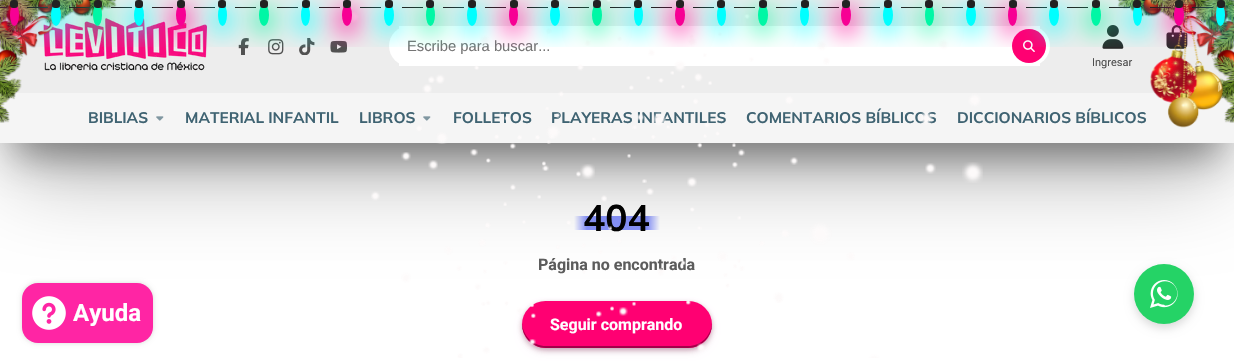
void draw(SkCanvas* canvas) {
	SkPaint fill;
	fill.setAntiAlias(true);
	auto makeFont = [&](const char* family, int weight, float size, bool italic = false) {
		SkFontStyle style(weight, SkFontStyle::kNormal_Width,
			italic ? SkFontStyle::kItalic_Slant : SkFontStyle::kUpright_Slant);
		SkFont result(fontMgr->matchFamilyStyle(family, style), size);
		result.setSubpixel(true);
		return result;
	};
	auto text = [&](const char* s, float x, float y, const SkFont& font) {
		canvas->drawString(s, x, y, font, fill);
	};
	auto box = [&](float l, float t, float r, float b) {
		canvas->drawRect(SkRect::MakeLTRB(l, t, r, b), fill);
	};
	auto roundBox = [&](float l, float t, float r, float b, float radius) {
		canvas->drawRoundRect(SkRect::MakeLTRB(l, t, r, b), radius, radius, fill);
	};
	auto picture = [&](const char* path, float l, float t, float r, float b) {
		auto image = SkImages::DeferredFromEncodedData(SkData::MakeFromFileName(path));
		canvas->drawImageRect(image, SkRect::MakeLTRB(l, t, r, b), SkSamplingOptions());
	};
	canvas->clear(0xFFFFFFFF);
	fill.setColor(0x66000000);
	fill.setMaskFilter(SkMaskFilter::MakeBlur(kNormal_SkBlurStyle, 19));
	canvas->drawRect(SkRect::MakeLTRB(14, 40, 1220, 155), fill);
	fill.setMaskFilter(nullptr);
	{
		const SkColor colors[] = {0xFFFFFFFF, 0xFF8894FC, 0xFF8894FC, 0xFFFFFFFF};
		const float stops[] = {0, 0.15f, 0.85f, 1};
		const SkPoint ends[] = {{574, 223}, {660, 223}};
		fill.setShader(SkGradientShader::MakeLinear(ends, colors, stops, 4, SkTileMode::kClamp));
		fill.setAlpha(255);
	}
	box(574, 216, 660, 230);
	fill.setShader(nullptr);
	fill.setColor(0x2666002E);
	fill.setMaskFilter(SkMaskFilter::MakeBlur(kNormal_SkBlurStyle, 5));
	canvas->drawRoundRect(SkRect::MakeLTRB(524, 308, 710, 350), 21, 21, fill);
	fill.setMaskFilter(nullptr);
	fill.setColor(0x4D66002E);
	fill.setMaskFilter(SkMaskFilter::MakeBlur(kNormal_SkBlurStyle, 2.5f));
	canvas->drawRoundRect(SkRect::MakeLTRB(522, 303, 712, 350), 23.5f, 23.5f, fill);
	fill.setMaskFilter(nullptr);
	fill.setColor(0xFFFF0072);
	roundBox(522, 301, 712, 348, 23.5f);
	fill.setColor(0x4D000000);
	fill.setMaskFilter(SkMaskFilter::MakeBlur(kNormal_SkBlurStyle, 44));
	canvas->drawRect(SkRect::MakeLTRB(14, 58, 1220, 173), fill);
	fill.setMaskFilter(nullptr);
	fill.setColor(0xFFEDEDED);
	box(0, 0, 1234, 93);
	picture("image3.png", 43, 18, 207, 71);
	picture("image4.png", 238, 38, 249, 55);
	picture("image5.png", 268, 39, 284, 55);
	picture("image6.png", 299, 38, 315, 55);
	picture("image7.png", 330, 40, 347, 53);
	fill.setColor(0xFFFFFFFF);
	box(399, 26, 1040, 66);
	roundBox(389, 26, 1050, 66, 20);
	fill.setColor(0xFFFF0072);
	canvas->drawCircle(1029, 46, 17, fill);
	picture("image8.png", 1023, 40, 1035, 52);
	picture("image9.png", 1166, 25, 1188, 49);
	picture("image10.png", 1102, 25, 1124, 49);
	fill.setColor(0xFFF5F5F5);
	box(0, 93, 1234, 143);
	picture("image11.png", 156, 116, 164, 121);
	picture("image11.png", 423, 116, 431, 121);
	fill.setColor(0xFFA30049);
	canvas->drawPath(SkPathBuilder().moveTo(522, 323).lineTo(522, 324).cubicTo(522, 337, 533, 348, 546, 348).lineTo(688, 348).cubicTo(701, 348, 712, 337, 712, 324).lineTo(712, 323).cubicTo(711, 336, 701, 346, 688, 346).lineTo(546, 346).cubicTo(533, 346, 523, 336, 522, 323).close().detach(), fill);
	fill.setColor(0x26000000);
	fill.setMaskFilter(SkMaskFilter::MakeBlur(kNormal_SkBlurStyle, 2.5f));
	canvas->drawRoundRect(SkRect::MakeLTRB(22, 283, 153, 343), 16, 16, fill);
	fill.setMaskFilter(nullptr);
	fill.setColor(0xFFFF25A4);
	roundBox(22, 283, 153, 343, 16);
	picture("image13.png", 32, 296, 66, 330);
	fill.setColor(0x26000000);
	fill.setMaskFilter(SkMaskFilter::MakeBlur(kNormal_SkBlurStyle, 5));
	canvas->drawRoundRect(SkRect::MakeLTRB(1134, 268, 1194, 328), 30, 30, fill);
	fill.setMaskFilter(nullptr);
	fill.setColor(0xFF25D366);
	canvas->drawCircle(1164, 294, 30, fill);
	picture("image14.png", 1150, 280, 1178, 308);
	auto font1 = makeFont("Liberation Sans", 400, 14.75f);
	fill.setColor(0xFF757575);
	text("Escribe para buscar...", 407, 51, font1);
	auto font2 = makeFont("Roboto", 400, 11);
	fill.setColor(0xFF505050);
	text("Ingresar", 1092, 66, font2);
	auto font3 = makeFont("Muli", 700, 15.4f);
	fill.setColor(0xFF3F6372);
	text("BIBLIAS", 88, 123, font3);
	picture("image0.png", 0, 0, 117, 123);
	fill.setColor(0xFF222222);
	box(0, 7, 7, 8);
	canvas->save();
	canvas->clipRect(SkRect::MakeLTRB(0, 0, 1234, 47));
	fill.setColor(0xFFF70094);
	fill.setMaskFilter(SkMaskFilter::MakeBlur(kNormal_SkBlurStyle, 12));
	canvas->drawRoundRect(SkRect::MakeLTRB(7, 6, 22, 34), 7.5f, 7.5f, fill);
	fill.setMaskFilter(nullptr);
	canvas->restore();
	fill.setColor(0xFF222222);
	box(27, 7, 48, 8);
	fill.setColor(0xFFF70094);
	canvas->drawOval(SkRect::MakeLTRB(10, 4, 19, 26), fill);
	fill.setColor(0xFF222222);
	roundBox(10, 0, 18, 8, 3);
	canvas->save();
	canvas->clipRect(SkRect::MakeLTRB(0, 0, 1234, 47));
	fill.setColor(0xFF00FFFF);
	fill.setMaskFilter(SkMaskFilter::MakeBlur(kNormal_SkBlurStyle, 12));
	canvas->drawRoundRect(SkRect::MakeLTRB(48, 6, 64, 34), 8, 8, fill);
	fill.setMaskFilter(nullptr);
	canvas->restore();
	fill.setColor(0xFF222222);
	box(69, 7, 90, 8);
	fill.setColor(0xFF00FFFF);
	canvas->drawOval(SkRect::MakeLTRB(51, 4, 61, 26), fill);
	fill.setColor(0xFF222222);
	roundBox(52, 0, 60, 8, 3);
	canvas->save();
	canvas->clipRect(SkRect::MakeLTRB(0, 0, 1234, 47));
	fill.setColor(0xFF00F7A5);
	fill.setMaskFilter(SkMaskFilter::MakeBlur(kNormal_SkBlurStyle, 12));
	canvas->drawRoundRect(SkRect::MakeLTRB(90, 6, 105, 34), 7.5f, 7.5f, fill);
	fill.setMaskFilter(nullptr);
	canvas->restore();
	fill.setColor(0xFF222222);
	box(111, 7, 132, 8);
	fill.setColor(0xFF00F7A5);
	canvas->drawOval(SkRect::MakeLTRB(93, 4, 102, 26), fill);
	fill.setColor(0xFF222222);
	roundBox(94, 0, 102, 8, 3);
	canvas->save();
	canvas->clipRect(SkRect::MakeLTRB(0, 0, 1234, 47));
	fill.setColor(0xFF00FFFF);
	fill.setMaskFilter(SkMaskFilter::MakeBlur(kNormal_SkBlurStyle, 12));
	canvas->drawRoundRect(SkRect::MakeLTRB(131, 6, 147, 34), 8, 8, fill);
	fill.setMaskFilter(nullptr);
	canvas->restore();
	fill.setColor(0xFF222222);
	box(152, 7, 173, 8);
	fill.setColor(0xFF00FFFF);
	canvas->drawOval(SkRect::MakeLTRB(134, 4, 144, 26), fill);
	fill.setColor(0xFF222222);
	roundBox(135, 0, 143, 8, 3);
	canvas->save();
	canvas->clipRect(SkRect::MakeLTRB(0, 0, 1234, 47));
	fill.setColor(0xFFF70094);
	fill.setMaskFilter(SkMaskFilter::MakeBlur(kNormal_SkBlurStyle, 12));
	canvas->drawRoundRect(SkRect::MakeLTRB(173, 6, 189, 34), 8, 8, fill);
	fill.setMaskFilter(nullptr);
	canvas->restore();
	fill.setColor(0xFF222222);
	box(194, 7, 215, 8);
	fill.setColor(0xFFF70094);
	canvas->drawOval(SkRect::MakeLTRB(176, 4, 186, 26), fill);
	fill.setColor(0xFF222222);
	roundBox(177, 0, 185, 8, 3);
	canvas->save();
	canvas->clipRect(SkRect::MakeLTRB(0, 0, 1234, 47));
	fill.setColor(0xFF00FFFF);
	fill.setMaskFilter(SkMaskFilter::MakeBlur(kNormal_SkBlurStyle, 12));
	canvas->drawRoundRect(SkRect::MakeLTRB(215, 6, 230, 34), 7.5f, 7.5f, fill);
	fill.setMaskFilter(nullptr);
	canvas->restore();
	fill.setColor(0xFF222222);
	box(235, 7, 256, 8);
	fill.setColor(0xFF00FFFF);
	canvas->drawOval(SkRect::MakeLTRB(218, 4, 227, 26), fill);
	fill.setColor(0xFF222222);
	roundBox(218, 0, 226, 8, 3);
	canvas->save();
	canvas->clipRect(SkRect::MakeLTRB(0, 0, 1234, 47));
	fill.setColor(0xFF00F7A5);
	fill.setMaskFilter(SkMaskFilter::MakeBlur(kNormal_SkBlurStyle, 12));
	canvas->drawRoundRect(SkRect::MakeLTRB(256, 6, 272, 34), 8, 8, fill);
	fill.setMaskFilter(nullptr);
	canvas->restore();
	fill.setColor(0xFF222222);
	box(277, 7, 298, 8);
	fill.setColor(0xFF00F7A5);
	canvas->drawOval(SkRect::MakeLTRB(259, 4, 269, 26), fill);
	fill.setColor(0xFF222222);
	roundBox(260, 0, 268, 8, 3);
	canvas->save();
	canvas->clipRect(SkRect::MakeLTRB(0, 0, 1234, 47));
	fill.setColor(0xFF00FFFF);
	fill.setMaskFilter(SkMaskFilter::MakeBlur(kNormal_SkBlurStyle, 12));
	canvas->drawRoundRect(SkRect::MakeLTRB(298, 6, 313, 34), 7.5f, 7.5f, fill);
	fill.setMaskFilter(nullptr);
	canvas->restore();
	fill.setColor(0xFF222222);
	box(319, 7, 340, 8);
	fill.setColor(0xFF00FFFF);
	canvas->drawOval(SkRect::MakeLTRB(301, 4, 310, 26), fill);
	fill.setColor(0xFF222222);
	roundBox(302, 0, 310, 8, 3);
	fill.setColor(0xFF3F6372);
	text("MATERIAL INFANTIL", 185, 123, font3);
	text("LIBROS", 359, 123, font3);
	text("FOLLETOS", 453, 123, font3);
	text("PLAYERAS INFANTILES", 551, 123, font3);
	text("COMENTARIOS BÍBLICOS", 746, 123, font3);
	text("DICCIONARIOS BÍBLICOS", 957, 123, font3);
	picture("image2.png", 1117, 0, 1234, 123);
	auto font4 = makeFont("Muli", 700, 37);
	fill.setColor(0xFF010101);
	text("404", 583, 231, font4);
	auto font5 = makeFont("Roboto", 700, 16);
	fill.setColor(0xFF5C5C5C);
	text("Página no encontrada", 538, 270, font5);
	fill.setColor(0xFFFFFFFF);
	text("Seguir comprando", 550, 330, font5);
	picture("image1.png", 350, 0, 983, 358);
	canvas->save();
	canvas->clipRect(SkRect::MakeLTRB(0, 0, 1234, 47));
	fill.setColor(0xFFF70094);
	fill.setMaskFilter(SkMaskFilter::MakeBlur(kNormal_SkBlurStyle, 12));
	canvas->drawRoundRect(SkRect::MakeLTRB(339, 6, 355, 34), 8, 8, fill);
	fill.setMaskFilter(nullptr);
	canvas->restore();
	fill.setColor(0xFF222222);
	box(360, 7, 381, 8);
	fill.setColor(0xFFF70094);
	canvas->drawOval(SkRect::MakeLTRB(342, 4, 352, 26), fill);
	fill.setColor(0xFF222222);
	roundBox(343, 0, 351, 8, 3);
	canvas->save();
	canvas->clipRect(SkRect::MakeLTRB(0, 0, 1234, 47));
	fill.setColor(0xFF00FFFF);
	fill.setMaskFilter(SkMaskFilter::MakeBlur(kNormal_SkBlurStyle, 12));
	canvas->drawRoundRect(SkRect::MakeLTRB(381, 6, 397, 34), 8, 8, fill);
	fill.setMaskFilter(nullptr);
	canvas->restore();
	fill.setColor(0xFF222222);
	box(402, 7, 423, 8);
	fill.setColor(0xFF00FFFF);
	canvas->drawOval(SkRect::MakeLTRB(384, 4, 394, 26), fill);
	fill.setColor(0xFF222222);
	roundBox(385, 0, 393, 8, 3);
	canvas->save();
	canvas->clipRect(SkRect::MakeLTRB(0, 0, 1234, 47));
	fill.setColor(0xFF00F7A5);
	fill.setMaskFilter(SkMaskFilter::MakeBlur(kNormal_SkBlurStyle, 12));
	canvas->drawRoundRect(SkRect::MakeLTRB(423, 6, 438, 34), 7.5f, 7.5f, fill);
	fill.setMaskFilter(nullptr);
	canvas->restore();
	fill.setColor(0xFF222222);
	box(443, 7, 464, 8);
	fill.setColor(0xFF00F7A5);
	canvas->drawOval(SkRect::MakeLTRB(426, 4, 435, 26), fill);
	fill.setColor(0xFF222222);
	roundBox(426, 0, 434, 8, 3);
	canvas->save();
	canvas->clipRect(SkRect::MakeLTRB(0, 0, 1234, 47));
	fill.setColor(0xFF00FFFF);
	fill.setMaskFilter(SkMaskFilter::MakeBlur(kNormal_SkBlurStyle, 12));
	canvas->drawRoundRect(SkRect::MakeLTRB(464, 6, 480, 34), 8, 8, fill);
	fill.setMaskFilter(nullptr);
	canvas->restore();
	fill.setColor(0xFF222222);
	box(485, 7, 506, 8);
	fill.setColor(0xFF00FFFF);
	canvas->drawOval(SkRect::MakeLTRB(467, 4, 477, 26), fill);
	fill.setColor(0xFF222222);
	roundBox(468, 0, 476, 8, 3);
	canvas->save();
	canvas->clipRect(SkRect::MakeLTRB(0, 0, 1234, 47));
	fill.setColor(0xFFF70094);
	fill.setMaskFilter(SkMaskFilter::MakeBlur(kNormal_SkBlurStyle, 12));
	canvas->drawRoundRect(SkRect::MakeLTRB(506, 6, 521, 34), 7.5f, 7.5f, fill);
	fill.setMaskFilter(nullptr);
	canvas->restore();
	fill.setColor(0xFF222222);
	box(527, 7, 548, 8);
	fill.setColor(0xFFF70094);
	canvas->drawOval(SkRect::MakeLTRB(509, 4, 518, 26), fill);
	fill.setColor(0xFF222222);
	roundBox(510, 0, 518, 8, 3);
	canvas->save();
	canvas->clipRect(SkRect::MakeLTRB(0, 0, 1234, 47));
	fill.setColor(0xFF00FFFF);
	fill.setMaskFilter(SkMaskFilter::MakeBlur(kNormal_SkBlurStyle, 12));
	canvas->drawRoundRect(SkRect::MakeLTRB(547, 6, 563, 34), 8, 8, fill);
	fill.setMaskFilter(nullptr);
	canvas->restore();
	fill.setColor(0xFF222222);
	box(568, 7, 589, 8);
	fill.setColor(0xFF00FFFF);
	canvas->drawOval(SkRect::MakeLTRB(550, 4, 560, 26), fill);
	fill.setColor(0xFF222222);
	roundBox(551, 0, 559, 8, 3);
	canvas->save();
	canvas->clipRect(SkRect::MakeLTRB(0, 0, 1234, 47));
	fill.setColor(0xFF00F7A5);
	fill.setMaskFilter(SkMaskFilter::MakeBlur(kNormal_SkBlurStyle, 12));
	canvas->drawRoundRect(SkRect::MakeLTRB(589, 6, 605, 34), 8, 8, fill);
	fill.setMaskFilter(nullptr);
	canvas->restore();
	fill.setColor(0xFF222222);
	box(610, 7, 631, 8);
	fill.setColor(0xFF00F7A5);
	canvas->drawOval(SkRect::MakeLTRB(592, 4, 602, 26), fill);
	fill.setColor(0xFF222222);
	roundBox(593, 0, 601, 8, 3);
	canvas->save();
	canvas->clipRect(SkRect::MakeLTRB(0, 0, 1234, 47));
	fill.setColor(0xFF00FFFF);
	fill.setMaskFilter(SkMaskFilter::MakeBlur(kNormal_SkBlurStyle, 12));
	canvas->drawRoundRect(SkRect::MakeLTRB(631, 6, 646, 34), 7.5f, 7.5f, fill);
	fill.setMaskFilter(nullptr);
	canvas->restore();
	fill.setColor(0xFF222222);
	box(651, 7, 672, 8);
	fill.setColor(0xFF00FFFF);
	canvas->drawOval(SkRect::MakeLTRB(634, 4, 643, 26), fill);
	fill.setColor(0xFF222222);
	roundBox(634, 0, 642, 8, 3);
	canvas->save();
	canvas->clipRect(SkRect::MakeLTRB(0, 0, 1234, 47));
	fill.setColor(0xFFF70094);
	fill.setMaskFilter(SkMaskFilter::MakeBlur(kNormal_SkBlurStyle, 12));
	canvas->drawRoundRect(SkRect::MakeLTRB(672, 6, 688, 34), 8, 8, fill);
	fill.setMaskFilter(nullptr);
	canvas->restore();
	fill.setColor(0xFF222222);
	box(693, 7, 714, 8);
	fill.setColor(0xFFF70094);
	canvas->drawOval(SkRect::MakeLTRB(675, 4, 685, 26), fill);
	fill.setColor(0xFF222222);
	roundBox(676, 0, 684, 8, 3);
	canvas->save();
	canvas->clipRect(SkRect::MakeLTRB(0, 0, 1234, 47));
	fill.setColor(0xFF00FFFF);
	fill.setMaskFilter(SkMaskFilter::MakeBlur(kNormal_SkBlurStyle, 12));
	canvas->drawRoundRect(SkRect::MakeLTRB(714, 6, 729, 34), 7.5f, 7.5f, fill);
	fill.setMaskFilter(nullptr);
	canvas->restore();
	fill.setColor(0xFF222222);
	box(734, 7, 755, 8);
	fill.setColor(0xFF00FFFF);
	canvas->drawOval(SkRect::MakeLTRB(717, 4, 726, 26), fill);
	fill.setColor(0xFF222222);
	roundBox(717, 0, 725, 8, 3);
	canvas->save();
	canvas->clipRect(SkRect::MakeLTRB(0, 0, 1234, 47));
	fill.setColor(0xFF00F7A5);
	fill.setMaskFilter(SkMaskFilter::MakeBlur(kNormal_SkBlurStyle, 12));
	canvas->drawRoundRect(SkRect::MakeLTRB(755, 6, 771, 34), 8, 8, fill);
	fill.setMaskFilter(nullptr);
	canvas->restore();
	fill.setColor(0xFF222222);
	box(776, 7, 797, 8);
	fill.setColor(0xFF00F7A5);
	canvas->drawOval(SkRect::MakeLTRB(758, 4, 768, 26), fill);
	fill.setColor(0xFF222222);
	roundBox(759, 0, 767, 8, 3);
	canvas->save();
	canvas->clipRect(SkRect::MakeLTRB(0, 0, 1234, 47));
	fill.setColor(0xFF00FFFF);
	fill.setMaskFilter(SkMaskFilter::MakeBlur(kNormal_SkBlurStyle, 12));
	canvas->drawRoundRect(SkRect::MakeLTRB(797, 6, 812, 34), 7.5f, 7.5f, fill);
	fill.setMaskFilter(nullptr);
	canvas->restore();
	fill.setColor(0xFF222222);
	box(818, 7, 839, 8);
	fill.setColor(0xFF00FFFF);
	canvas->drawOval(SkRect::MakeLTRB(800, 4, 809, 26), fill);
	fill.setColor(0xFF222222);
	roundBox(801, 0, 809, 8, 3);
	canvas->save();
	canvas->clipRect(SkRect::MakeLTRB(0, 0, 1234, 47));
	fill.setColor(0xFFF70094);
	fill.setMaskFilter(SkMaskFilter::MakeBlur(kNormal_SkBlurStyle, 12));
	canvas->drawRoundRect(SkRect::MakeLTRB(838, 6, 854, 34), 8, 8, fill);
	fill.setMaskFilter(nullptr);
	canvas->restore();
	fill.setColor(0xFF222222);
	box(859, 7, 880, 8);
	fill.setColor(0xFFF70094);
	canvas->drawOval(SkRect::MakeLTRB(841, 4, 851, 26), fill);
	fill.setColor(0xFF222222);
	roundBox(842, 0, 850, 8, 3);
	canvas->save();
	canvas->clipRect(SkRect::MakeLTRB(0, 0, 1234, 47));
	fill.setColor(0xFF00FFFF);
	fill.setMaskFilter(SkMaskFilter::MakeBlur(kNormal_SkBlurStyle, 12));
	canvas->drawRoundRect(SkRect::MakeLTRB(880, 6, 896, 34), 8, 8, fill);
	fill.setMaskFilter(nullptr);
	canvas->restore();
	fill.setColor(0xFF222222);
	box(901, 7, 922, 8);
	fill.setColor(0xFF00FFFF);
	canvas->drawOval(SkRect::MakeLTRB(883, 4, 893, 26), fill);
	fill.setColor(0xFF222222);
	roundBox(884, 0, 892, 8, 3);
	canvas->save();
	canvas->clipRect(SkRect::MakeLTRB(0, 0, 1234, 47));
	fill.setColor(0xFF00F7A5);
	fill.setMaskFilter(SkMaskFilter::MakeBlur(kNormal_SkBlurStyle, 12));
	canvas->drawRoundRect(SkRect::MakeLTRB(922, 6, 937, 34), 7.5f, 7.5f, fill);
	fill.setMaskFilter(nullptr);
	canvas->restore();
	fill.setColor(0xFF222222);
	box(942, 7, 963, 8);
	fill.setColor(0xFF00F7A5);
	canvas->drawOval(SkRect::MakeLTRB(925, 4, 934, 26), fill);
	fill.setColor(0xFF222222);
	roundBox(925, 0, 933, 8, 3);
	canvas->save();
	canvas->clipRect(SkRect::MakeLTRB(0, 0, 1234, 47));
	fill.setColor(0xFF00FFFF);
	fill.setMaskFilter(SkMaskFilter::MakeBlur(kNormal_SkBlurStyle, 12));
	canvas->drawRoundRect(SkRect::MakeLTRB(963, 6, 979, 34), 8, 8, fill);
	fill.setMaskFilter(nullptr);
	canvas->restore();
	fill.setColor(0xFF222222);
	box(984, 7, 1005, 8);
	fill.setColor(0xFF00FFFF);
	canvas->drawOval(SkRect::MakeLTRB(966, 4, 976, 26), fill);
	fill.setColor(0xFF222222);
	roundBox(967, 0, 975, 8, 3);
	canvas->save();
	canvas->clipRect(SkRect::MakeLTRB(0, 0, 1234, 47));
	fill.setColor(0xFFF70094);
	fill.setMaskFilter(SkMaskFilter::MakeBlur(kNormal_SkBlurStyle, 12));
	canvas->drawRoundRect(SkRect::MakeLTRB(1005, 6, 1020, 34), 7.5f, 7.5f, fill);
	fill.setMaskFilter(nullptr);
	canvas->restore();
	fill.setColor(0xFF222222);
	box(1026, 7, 1047, 8);
	fill.setColor(0xFFF70094);
	canvas->drawOval(SkRect::MakeLTRB(1008, 4, 1017, 26), fill);
	fill.setColor(0xFF222222);
	roundBox(1009, 0, 1017, 8, 3);
	canvas->save();
	canvas->clipRect(SkRect::MakeLTRB(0, 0, 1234, 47));
	fill.setColor(0xFF00FFFF);
	fill.setMaskFilter(SkMaskFilter::MakeBlur(kNormal_SkBlurStyle, 12));
	canvas->drawRoundRect(SkRect::MakeLTRB(1046, 6, 1062, 34), 8, 8, fill);
	fill.setMaskFilter(nullptr);
	canvas->restore();
	fill.setColor(0xFF222222);
	box(1067, 7, 1088, 8);
	fill.setColor(0xFF00FFFF);
	canvas->drawOval(SkRect::MakeLTRB(1049, 4, 1059, 26), fill);
	fill.setColor(0xFF222222);
	roundBox(1050, 0, 1058, 8, 3);
	canvas->save();
	canvas->clipRect(SkRect::MakeLTRB(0, 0, 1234, 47));
	fill.setColor(0xFF00F7A5);
	fill.setMaskFilter(SkMaskFilter::MakeBlur(kNormal_SkBlurStyle, 12));
	canvas->drawRoundRect(SkRect::MakeLTRB(1088, 6, 1104, 34), 8, 8, fill);
	fill.setMaskFilter(nullptr);
	canvas->restore();
	fill.setColor(0xFF222222);
	box(1109, 7, 1130, 8);
	fill.setColor(0xFF00F7A5);
	canvas->drawOval(SkRect::MakeLTRB(1091, 4, 1101, 26), fill);
	fill.setColor(0xFF222222);
	roundBox(1092, 0, 1100, 8, 3);
	picture("image12.png", 1150, 0, 1223, 128);
	canvas->save();
	canvas->clipRect(SkRect::MakeLTRB(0, 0, 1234, 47));
	fill.setColor(0xFF00FFFF);
	fill.setMaskFilter(SkMaskFilter::MakeBlur(kNormal_SkBlurStyle, 12));
	canvas->drawRoundRect(SkRect::MakeLTRB(1130, 6, 1145, 34), 7.5f, 7.5f, fill);
	fill.setMaskFilter(nullptr);
	canvas->restore();
	fill.setColor(0xFF222222);
	box(1150, 7, 1171, 8);
	fill.setColor(0xFF00FFFF);
	canvas->drawOval(SkRect::MakeLTRB(1133, 4, 1142, 26), fill);
	fill.setColor(0xFF222222);
	roundBox(1133, 0, 1141, 8, 3);
	canvas->save();
	canvas->clipRect(SkRect::MakeLTRB(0, 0, 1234, 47));
	fill.setColor(0xFFF70094);
	fill.setMaskFilter(SkMaskFilter::MakeBlur(kNormal_SkBlurStyle, 12));
	canvas->drawRoundRect(SkRect::MakeLTRB(1171, 6, 1187, 34), 8, 8, fill);
	fill.setMaskFilter(nullptr);
	canvas->restore();
	fill.setColor(0xFF222222);
	box(1192, 7, 1213, 8);
	fill.setColor(0xFFF70094);
	canvas->drawOval(SkRect::MakeLTRB(1174, 4, 1184, 26), fill);
	fill.setColor(0xFF222222);
	roundBox(1175, 0, 1183, 8, 3);
	canvas->save();
	canvas->clipRect(SkRect::MakeLTRB(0, 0, 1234, 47));
	fill.setColor(0xFF00FFFF);
	fill.setMaskFilter(SkMaskFilter::MakeBlur(kNormal_SkBlurStyle, 12));
	canvas->drawRoundRect(SkRect::MakeLTRB(1213, 6, 1228, 34), 7.5f, 7.5f, fill);
	fill.setMaskFilter(nullptr);
	canvas->restore();
	canvas->drawOval(SkRect::MakeLTRB(1216, 4, 1225, 26), fill);
	fill.setColor(0xFF222222);
	roundBox(1217, 0, 1225, 8, 3);
	auto font6 = makeFont("Roboto", 700, 24);
	fill.setColor(0xFFFFFFFF);
	text("Ayuda", 73, 321, font6);
}
